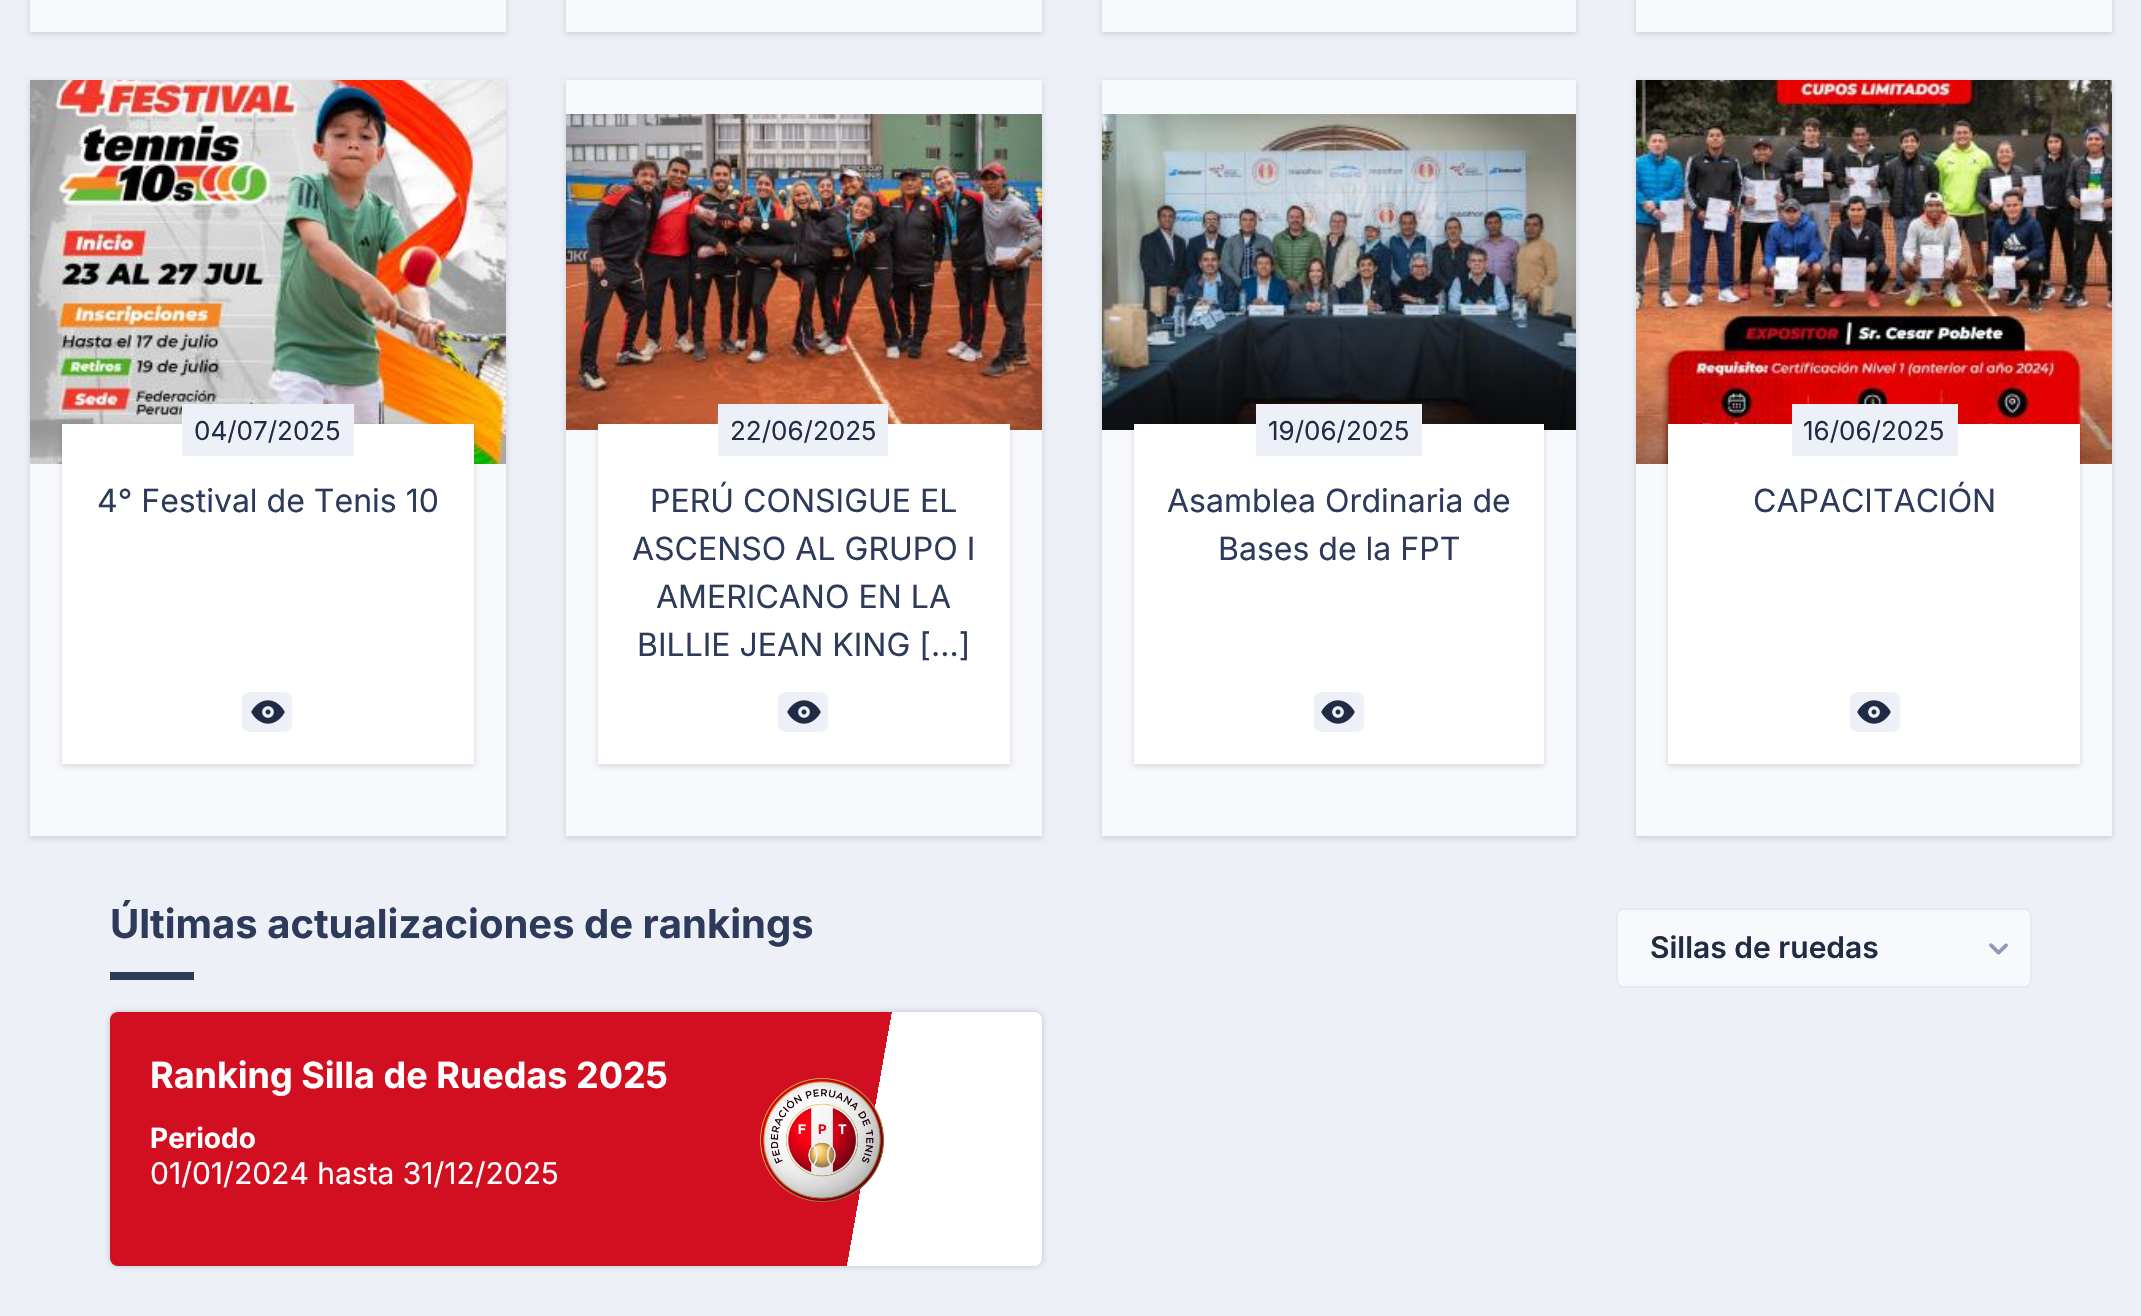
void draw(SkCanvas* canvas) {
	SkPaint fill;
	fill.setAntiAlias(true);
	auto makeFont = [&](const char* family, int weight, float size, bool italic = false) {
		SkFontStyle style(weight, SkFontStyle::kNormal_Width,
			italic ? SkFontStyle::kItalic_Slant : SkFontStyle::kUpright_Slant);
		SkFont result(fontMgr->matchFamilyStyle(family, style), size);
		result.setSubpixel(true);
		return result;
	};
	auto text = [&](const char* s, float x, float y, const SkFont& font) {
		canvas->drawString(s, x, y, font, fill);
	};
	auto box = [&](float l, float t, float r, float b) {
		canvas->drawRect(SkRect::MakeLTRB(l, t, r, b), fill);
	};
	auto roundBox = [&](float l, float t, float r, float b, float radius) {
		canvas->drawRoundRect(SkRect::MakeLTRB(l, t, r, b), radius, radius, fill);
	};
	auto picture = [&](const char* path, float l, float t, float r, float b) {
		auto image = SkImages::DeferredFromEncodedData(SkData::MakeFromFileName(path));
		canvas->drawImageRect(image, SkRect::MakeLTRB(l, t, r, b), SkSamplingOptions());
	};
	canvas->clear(0xFFEDF1F7);
	fill.setColor(0x26000000);
	fill.setMaskFilter(SkMaskFilter::MakeBlur(kNormal_SkBlurStyle, 3));
	canvas->drawRect(SkRect::MakeLTRB(30, -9, 506, 34), fill);
	fill.setMaskFilter(nullptr);
	fill.setColor(0xFFF7F9FC);
	box(30, 0, 506, 32);
	fill.setColor(0x26000000);
	fill.setMaskFilter(SkMaskFilter::MakeBlur(kNormal_SkBlurStyle, 3));
	canvas->drawRect(SkRect::MakeLTRB(566, -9, 1042, 34), fill);
	fill.setMaskFilter(nullptr);
	fill.setColor(0xFFF7F9FC);
	box(566, 0, 1042, 32);
	fill.setColor(0x26000000);
	fill.setMaskFilter(SkMaskFilter::MakeBlur(kNormal_SkBlurStyle, 3));
	canvas->drawRect(SkRect::MakeLTRB(1102, -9, 1576, 34), fill);
	fill.setMaskFilter(nullptr);
	fill.setColor(0xFFF7F9FC);
	box(1102, 0, 1576, 32);
	fill.setColor(0x26000000);
	fill.setMaskFilter(SkMaskFilter::MakeBlur(kNormal_SkBlurStyle, 3));
	canvas->drawRect(SkRect::MakeLTRB(1636, -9, 2112, 34), fill);
	fill.setMaskFilter(nullptr);
	fill.setColor(0xFFF7F9FC);
	box(1636, 0, 2112, 32);
	fill.setColor(0x26000000);
	fill.setMaskFilter(SkMaskFilter::MakeBlur(kNormal_SkBlurStyle, 3));
	canvas->drawRect(SkRect::MakeLTRB(30, 82, 506, 838), fill);
	fill.setMaskFilter(nullptr);
	fill.setColor(0xFFF7F9FC);
	box(30, 464, 506, 836);
	picture("image0.png", 30, 80, 506, 464);
	fill.setColor(0x26000000);
	fill.setMaskFilter(SkMaskFilter::MakeBlur(kNormal_SkBlurStyle, 3));
	canvas->drawRect(SkRect::MakeLTRB(62, 426, 474, 766), fill);
	fill.setMaskFilter(nullptr);
	fill.setColor(0xFFFFFFFF);
	box(62, 424, 474, 764);
	fill.setColor(0xFFEDF1F7);
	box(182, 404, 354, 456);
	roundBox(242, 692, 292, 732, 8);
	picture("image1.png", 251, 700, 285, 724);
	fill.setColor(0x26000000);
	fill.setMaskFilter(SkMaskFilter::MakeBlur(kNormal_SkBlurStyle, 3));
	canvas->drawRect(SkRect::MakeLTRB(566, 82, 1042, 838), fill);
	fill.setMaskFilter(nullptr);
	fill.setColor(0xFFF7F9FC);
	box(566, 80, 1042, 836);
	picture("image2.png", 566, 114, 1042, 430);
	fill.setColor(0x26000000);
	fill.setMaskFilter(SkMaskFilter::MakeBlur(kNormal_SkBlurStyle, 3));
	canvas->drawRect(SkRect::MakeLTRB(598, 426, 1010, 766), fill);
	fill.setMaskFilter(nullptr);
	fill.setColor(0xFFFFFFFF);
	box(598, 424, 1010, 764);
	fill.setColor(0xFFEDF1F7);
	box(718, 404, 888, 456);
	roundBox(778, 692, 828, 732, 8);
	picture("image1.png", 787, 700, 821, 724);
	fill.setColor(0x26000000);
	fill.setMaskFilter(SkMaskFilter::MakeBlur(kNormal_SkBlurStyle, 3));
	canvas->drawRect(SkRect::MakeLTRB(1102, 82, 1576, 838), fill);
	fill.setMaskFilter(nullptr);
	fill.setColor(0xFFF7F9FC);
	box(1102, 80, 1576, 836);
	picture("image3.png", 1102, 114, 1576, 430);
	fill.setColor(0x26000000);
	fill.setMaskFilter(SkMaskFilter::MakeBlur(kNormal_SkBlurStyle, 3));
	canvas->drawRect(SkRect::MakeLTRB(1134, 426, 1544, 766), fill);
	fill.setMaskFilter(nullptr);
	fill.setColor(0xFFFFFFFF);
	box(1134, 424, 1544, 764);
	fill.setColor(0xFFEDF1F7);
	box(1256, 404, 1422, 456);
	roundBox(1314, 692, 1364, 732, 8);
	picture("image1.png", 1321, 700, 1355, 724);
	fill.setColor(0x26000000);
	fill.setMaskFilter(SkMaskFilter::MakeBlur(kNormal_SkBlurStyle, 3));
	canvas->drawRect(SkRect::MakeLTRB(1636, 82, 2112, 838), fill);
	fill.setMaskFilter(nullptr);
	fill.setColor(0xFFF7F9FC);
	box(1636, 464, 2112, 836);
	picture("image4.png", 1636, 80, 2112, 464);
	fill.setColor(0x26000000);
	fill.setMaskFilter(SkMaskFilter::MakeBlur(kNormal_SkBlurStyle, 3));
	canvas->drawRect(SkRect::MakeLTRB(1668, 426, 2080, 766), fill);
	fill.setMaskFilter(nullptr);
	fill.setColor(0xFFFFFFFF);
	box(1668, 424, 2080, 764);
	fill.setColor(0xFFEDF1F7);
	box(1792, 404, 1958, 456);
	roundBox(1850, 692, 1900, 732, 8);
	picture("image1.png", 1857, 700, 1891, 724);
	fill.setColor(0xFF2E3A59);
	box(110, 972, 194, 980);
	fill.setColor(0xFFF7F9FC);
	canvas->drawRoundRect(SkRect::MakeLTRB(1617, 909, 2031, 987), 7, 7, fill);
	fill.setStyle(SkPaint::kStroke_Style);
	fill.setStrokeWidth(2);
	fill.setColor(0xFFE4E9F2);
	canvas->drawRoundRect(SkRect::MakeLTRB(1617, 909, 2031, 987), 7, 7, fill);
	picture("image5.png", 1989, 943, 2008, 955);
	fill.setStyle(SkPaint::kFill_Style);
	fill.setColor(0x33000000);
	fill.setMaskFilter(SkMaskFilter::MakeBlur(kNormal_SkBlurStyle, 3));
	canvas->drawRoundRect(SkRect::MakeLTRB(110, 1012, 1042, 1266), 8, 8, fill);
	fill.setMaskFilter(nullptr);
	{
		const SkColor colors[] = {0xFFD20E21, 0xFFFFFFFF};
		const float stops[] = {0.8f, 0.8f};
		const SkPoint ends[] = {{102, 1055}, {1050, 1223}};
		fill.setShader(SkGradientShader::MakeLinear(ends, colors, stops, 2, SkTileMode::kClamp));
		fill.setAlpha(255);
	}
	roundBox(110, 1012, 1042, 1266, 8);
	picture("image6.png", 759, 1078, 885, 1202);
	auto font1 = makeFont("Inter", 400, 26);
	fill.setShader(nullptr);
	fill.setColor(0xFF222B45);
	text("04/07/2025", 194, 440, font1);
	auto font2 = makeFont("Inter", 400, 32);
	fill.setColor(0xFF2E3A59);
	text("4° Festival de Tenis 10", 97, 512, font2);
	fill.setColor(0xFF222B45);
	text("22/06/2025", 730, 440, font1);
	fill.setColor(0xFF2E3A59);
	text("PERÚ CONSIGUE EL", 650, 512, font2);
	text("ASCENSO AL GRUPO I", 632, 560, font2);
	text("AMERICANO EN LA", 656, 608, font2);
	text("BILLIE JEAN KING [...]", 637, 656, font2);
	fill.setColor(0xFF222B45);
	text("19/06/2025", 1268, 440, font1);
	fill.setColor(0xFF2E3A59);
	text("Asamblea Ordinaria de", 1167, 512, font2);
	text("Bases de la FPT", 1218, 560, font2);
	fill.setColor(0xFF222B45);
	text("16/06/2025", 1803, 440, font1);
	fill.setColor(0xFF2E3A59);
	text("CAPACITACIÓN", 1753, 512, font2);
	auto font3 = makeFont("Inter", 700, 40);
	text("Últimas actualizaciones de rankings", 110, 938, font3);
	auto font4 = makeFont("Inter", 600, 30);
	fill.setColor(0xFF222B45);
	text("Sillas de ruedas", 1650, 958, font4);
	auto font5 = makeFont("Inter", 700, 36);
	fill.setColor(0xFFFFFFFF);
	text("Ranking Silla de Ruedas 2025", 150, 1088, font5);
	auto font6 = makeFont("Inter", 700, 28);
	text("Periodo", 150, 1148, font6);
	auto font7 = makeFont("Inter", 400, 30);
	text("01/01/2024 hasta 31/12/2025", 150, 1184, font7);
}
